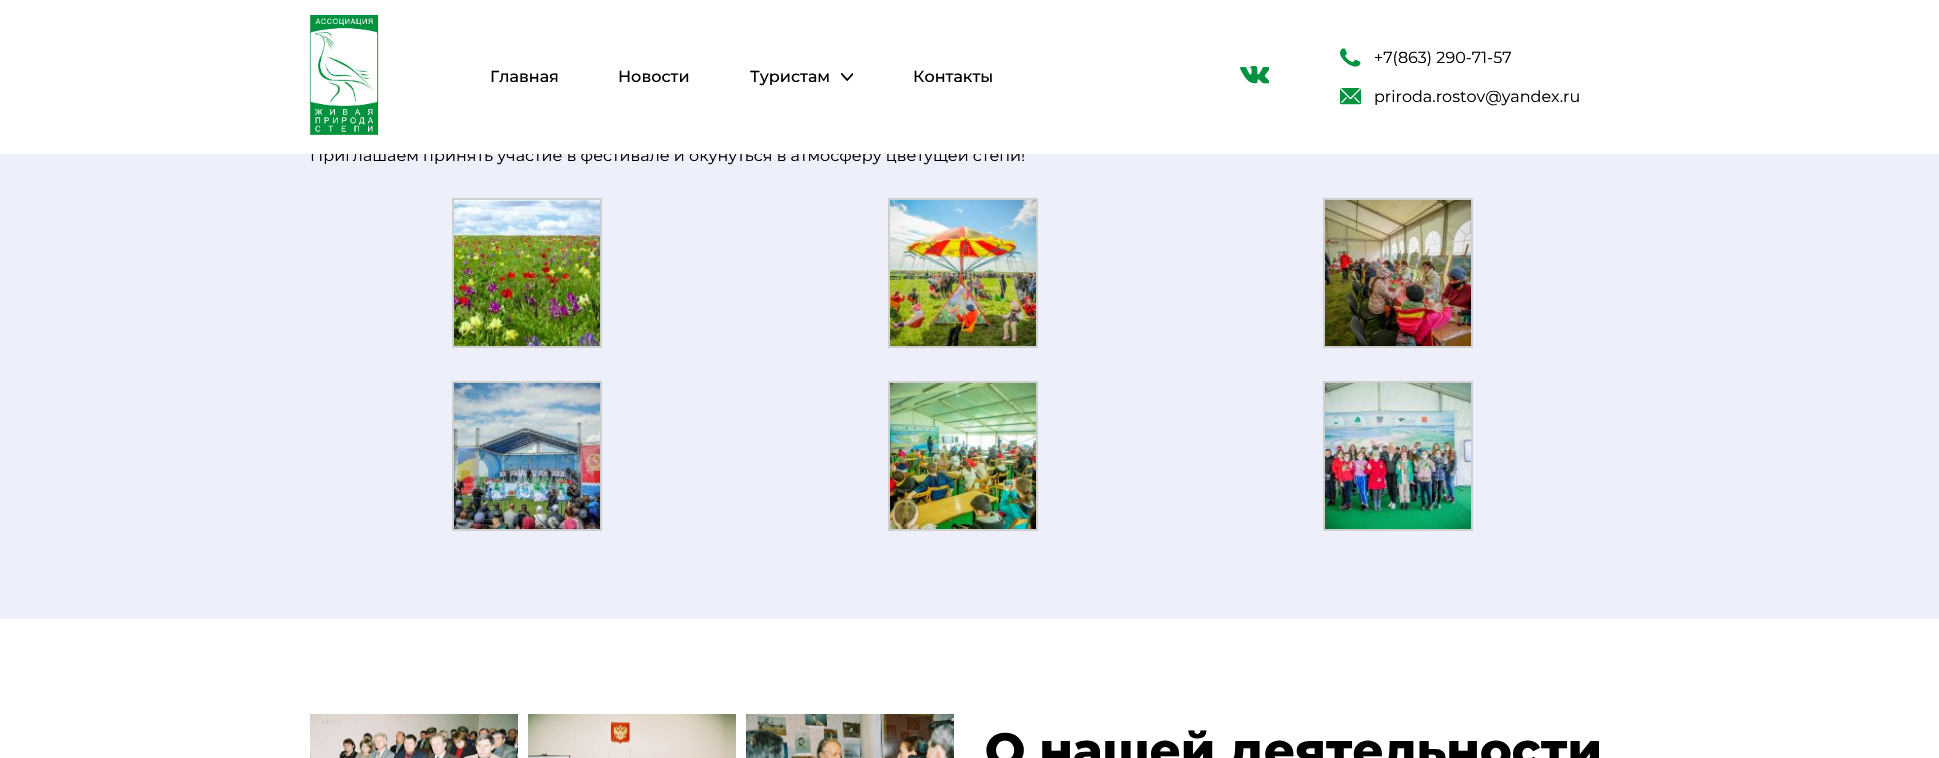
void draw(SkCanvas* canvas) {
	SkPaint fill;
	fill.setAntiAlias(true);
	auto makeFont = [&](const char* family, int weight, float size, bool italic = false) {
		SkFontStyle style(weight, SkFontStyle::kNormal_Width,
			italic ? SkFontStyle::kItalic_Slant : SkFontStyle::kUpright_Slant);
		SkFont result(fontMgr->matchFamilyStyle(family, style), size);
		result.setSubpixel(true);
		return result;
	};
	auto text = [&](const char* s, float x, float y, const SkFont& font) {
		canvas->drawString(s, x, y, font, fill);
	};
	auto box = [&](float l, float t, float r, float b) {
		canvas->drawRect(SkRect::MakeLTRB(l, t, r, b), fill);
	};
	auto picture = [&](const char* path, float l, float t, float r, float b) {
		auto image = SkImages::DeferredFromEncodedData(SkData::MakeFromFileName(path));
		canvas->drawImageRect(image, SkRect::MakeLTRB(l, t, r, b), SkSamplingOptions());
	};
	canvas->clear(0xFFFFFFFF);
	picture("image0.png", 309, 15, 379, 135);
	picture("image1.png", 840, 73, 853, 81);
	picture("image2.png", 1240, 66, 1269, 84);
	picture("image3.png", 1340, 48, 1361, 67);
	picture("image4.png", 1340, 88, 1361, 105);
	fill.setColor(0xFFEDEFFA);
	box(0, 154, 1939, 619);
	fill.setStyle(SkPaint::kStroke_Style);
	fill.setStrokeWidth(2);
	fill.setColor(0xFFCFCFCF);
	canvas->drawRect(SkRect::MakeLTRB(453, 199, 601, 347), fill);
	picture("image5.png", 454, 200, 600, 346);
	canvas->drawRect(SkRect::MakeLTRB(889, 199, 1037, 347), fill);
	picture("image6.png", 890, 200, 1036, 346);
	canvas->drawRect(SkRect::MakeLTRB(1324, 199, 1472, 347), fill);
	picture("image7.png", 1325, 200, 1471, 346);
	canvas->drawRect(SkRect::MakeLTRB(453, 382, 601, 530), fill);
	picture("image8.png", 454, 383, 600, 529);
	canvas->drawRect(SkRect::MakeLTRB(889, 382, 1037, 530), fill);
	picture("image9.png", 890, 383, 1036, 529);
	canvas->drawRect(SkRect::MakeLTRB(1324, 382, 1472, 530), fill);
	picture("image10.png", 1325, 383, 1471, 529);
	picture("image11.png", 310, 714, 518, 758);
	picture("image12.png", 528, 714, 736, 758);
	picture("image13.png", 746, 714, 954, 758);
	auto font1 = makeFont("Montserrat", 500, 16);
	fill.setStyle(SkPaint::kFill_Style);
	fill.setColor(0xFF000000);
	text("Главная", 490, 82, font1);
	text("Новости", 618, 82, font1);
	text("Туристам", 750, 82, font1);
	text("Контакты", 913, 82, font1);
	auto font2 = makeFont("Montserrat", 400, 16);
	text("+7(863) 290-71-57", 1374, 63, font2);
	text("priroda.rostov@yandex.ru", 1374, 102, font2);
	text("Приглашаем принять участие в фестивале и окунуться в атмосферу цветущей степи!", 310, 161, font2);
	fill.setColor(0xFFFFFFFF);
	box(311, 149, 1024, 154);
	auto font3 = makeFont("Montserrat", 800, 48);
	fill.setColor(0xFF000000);
	text("О нашей деятельности", 985, 767, font3);
}
